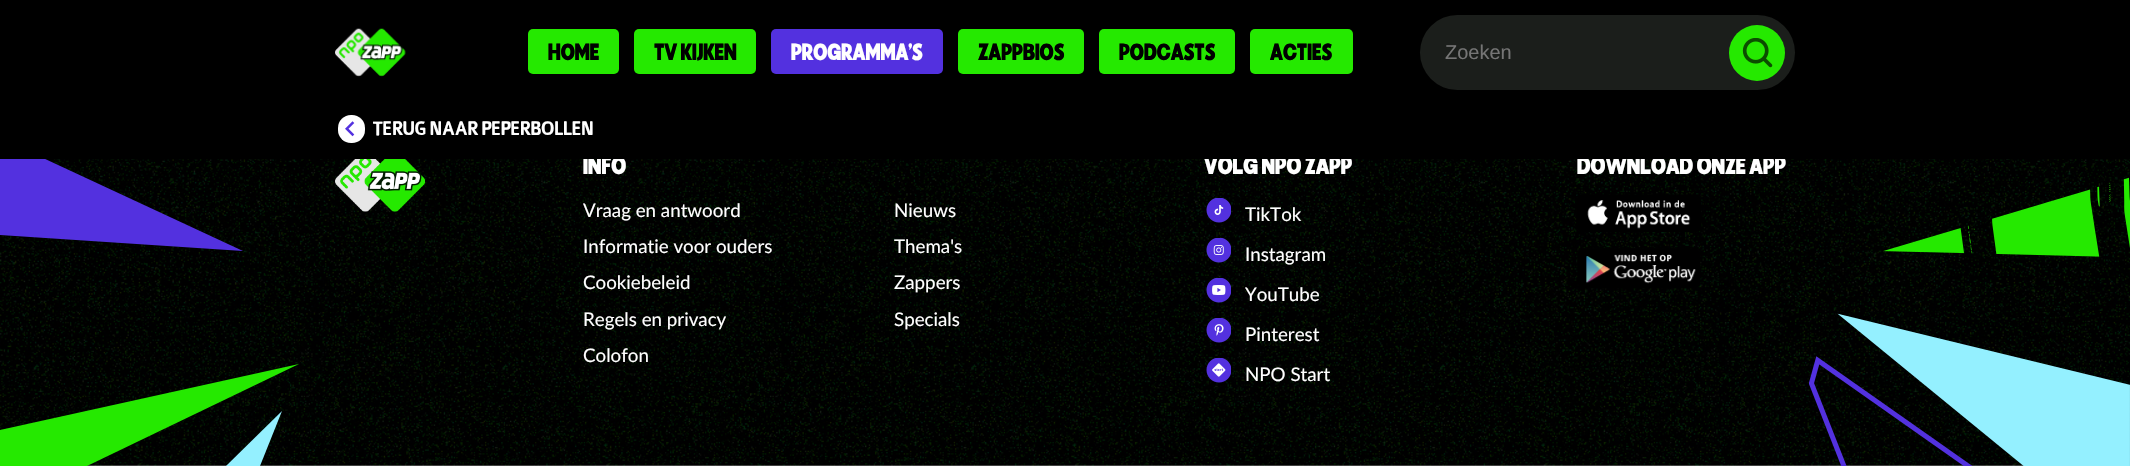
void draw(SkCanvas* canvas) {
	SkPaint fill;
	fill.setAntiAlias(true);
	auto makeFont = [&](const char* family, int weight, float size, bool italic = false) {
		SkFontStyle style(weight, SkFontStyle::kNormal_Width,
			italic ? SkFontStyle::kItalic_Slant : SkFontStyle::kUpright_Slant);
		SkFont result(fontMgr->matchFamilyStyle(family, style), size);
		result.setSubpixel(true);
		return result;
	};
	auto text = [&](const char* s, float x, float y, const SkFont& font) {
		canvas->drawString(s, x, y, font, fill);
	};
	auto box = [&](float l, float t, float r, float b) {
		canvas->drawRect(SkRect::MakeLTRB(l, t, r, b), fill);
	};
	auto roundBox = [&](float l, float t, float r, float b, float radius) {
		canvas->drawRoundRect(SkRect::MakeLTRB(l, t, r, b), radius, radius, fill);
	};
	auto picture = [&](const char* path, float l, float t, float r, float b) {
		auto image = SkImages::DeferredFromEncodedData(SkData::MakeFromFileName(path));
		canvas->drawImageRect(image, SkRect::MakeLTRB(l, t, r, b), SkSamplingOptions());
	};
	canvas->clear(0xFFFFFFFF);
	picture("image0.png", 0, 159, 2130, 466);
	fill.setColor(0xFF25E900);
	canvas->drawPath(SkPathBuilder().moveTo(299, 364).lineTo(0, 430).lineTo(0, 466).lineTo(87, 466).close().detach(), fill);
	fill.setColor(0xFF5331DF);
	canvas->drawPath(SkPathBuilder().moveTo(243, 251).lineTo(0, 138).lineTo(0, 235).close().detach(), fill);
	fill.setColor(0xFF94F0FF);
	canvas->drawPath(SkPathBuilder().moveTo(226, 466).lineTo(282, 411).lineTo(260, 466).close().detach(), fill);
	picture("image4.png", 335, 159, 425, 212);
	picture("image5.png", 1206, 198, 1231, 223);
	picture("image6.png", 1206, 238, 1231, 263);
	picture("image7.png", 1206, 278, 1231, 303);
	picture("image8.png", 1206, 318, 1231, 343);
	picture("image9.png", 1206, 358, 1231, 383);
	picture("image10.png", 1576, 194, 1701, 232);
	picture("image11.png", 1576, 247, 1701, 289);
	picture("image12.png", 1809, 177, 2130, 466);
	auto font1 = makeFont("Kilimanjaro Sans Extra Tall", 400, 23.75f);
	fill.setColor(0xFFFFFFFF);
	text("INFO", 583, 174, font1);
	auto font2 = makeFont("Lato", 400, 18.75f);
	text("Vraag en antwoord", 583, 217, font2);
	text("Informatie voor ouders", 583, 253, font2);
	text("Cookiebeleid", 583, 289, font2);
	text("Regels en privacy", 583, 326, font2);
	text("Colofon", 583, 362, font2);
	text("Nieuws", 894, 217, font2);
	text("Thema's", 894, 253, font2);
	text("Zappers", 894, 289, font2);
	text("Specials", 894, 326, font2);
	text("VOLG NPO ZAPP", 1204, 174, font1);
	text("TikTok", 1245, 221, font2);
	text("Instagram", 1245, 261, font2);
	text("YouTube", 1245, 301, font2);
	text("Pinterest", 1245, 341, font2);
	text("NPO Start", 1245, 381, font2);
	text("DOWNLOAD ONZE APP", 1577, 174, font1);
	fill.setColor(0xFF000000);
	box(0, 0, 2130, 159);
	picture("image1.png", 335, 28, 406, 77);
	auto font3 = makeFont("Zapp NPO", 400, 18.75f);
	fill.setColor(0xFFFFFFFF);
	text("TERUG NAAR PEPERBOLLEN", 373, 135, font3);
	roundBox(338, 115, 365, 143, 13);
	picture("image3.png", 345, 121, 355, 137);
	fill.setColor(0xFF1B1E1B);
	roundBox(1420, 15, 1795, 90, 37.5f);
	fill.setColor(0xFF25E900);
	canvas->drawCircle(1757, 53, 28, fill);
	picture("image2.png", 1742, 38, 1773, 68);
	auto font4 = makeFont("Liberation Sans", 400, 20);
	fill.setColor(0xFF757575);
	text("Zoeken", 1445, 59, font4);
	fill.setColor(0xFF25E900);
	roundBox(1250, 29, 1353, 74, 5);
	auto font5 = makeFont("Kilimanjaro Sans Extra Tall", 400, 22.5f);
	fill.setColor(0xFF000000);
	text("ACTIES", 1270, 60, font5);
	fill.setColor(0xFF25E900);
	roundBox(1099, 29, 1235, 74, 5);
	fill.setColor(0xFF000000);
	text("PODCASTS", 1119, 60, font5);
	fill.setColor(0xFF25E900);
	roundBox(958, 29, 1084, 74, 5);
	fill.setColor(0xFF000000);
	text("ZAPPBIOS", 978, 60, font5);
	fill.setColor(0xFF5331DF);
	roundBox(771, 29, 943, 74, 5);
	fill.setColor(0xFFFFFFFF);
	text("PROGRAMMA'S", 791, 60, font5);
	fill.setColor(0xFF25E900);
	roundBox(634, 29, 756, 74, 5);
	fill.setColor(0xFF000000);
	text("TV KIJKEN", 654, 60, font5);
	fill.setColor(0xFF25E900);
	roundBox(528, 29, 619, 74, 5);
	fill.setColor(0xFF000000);
	text("HOME", 548, 60, font5);
}
